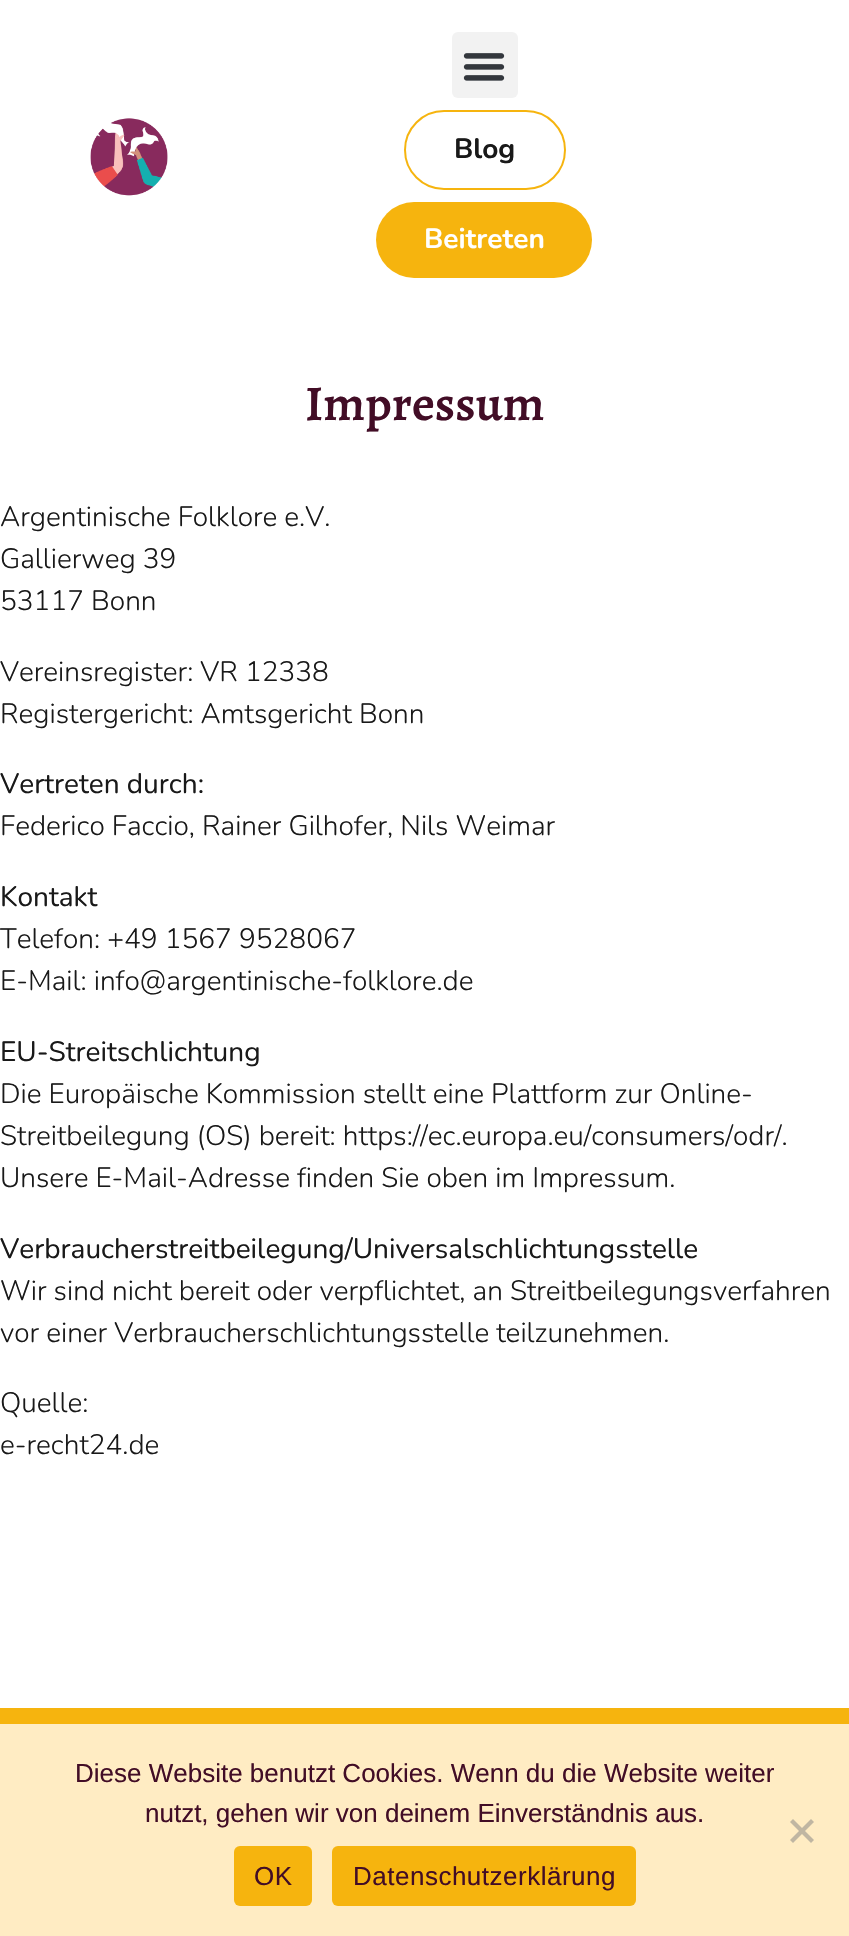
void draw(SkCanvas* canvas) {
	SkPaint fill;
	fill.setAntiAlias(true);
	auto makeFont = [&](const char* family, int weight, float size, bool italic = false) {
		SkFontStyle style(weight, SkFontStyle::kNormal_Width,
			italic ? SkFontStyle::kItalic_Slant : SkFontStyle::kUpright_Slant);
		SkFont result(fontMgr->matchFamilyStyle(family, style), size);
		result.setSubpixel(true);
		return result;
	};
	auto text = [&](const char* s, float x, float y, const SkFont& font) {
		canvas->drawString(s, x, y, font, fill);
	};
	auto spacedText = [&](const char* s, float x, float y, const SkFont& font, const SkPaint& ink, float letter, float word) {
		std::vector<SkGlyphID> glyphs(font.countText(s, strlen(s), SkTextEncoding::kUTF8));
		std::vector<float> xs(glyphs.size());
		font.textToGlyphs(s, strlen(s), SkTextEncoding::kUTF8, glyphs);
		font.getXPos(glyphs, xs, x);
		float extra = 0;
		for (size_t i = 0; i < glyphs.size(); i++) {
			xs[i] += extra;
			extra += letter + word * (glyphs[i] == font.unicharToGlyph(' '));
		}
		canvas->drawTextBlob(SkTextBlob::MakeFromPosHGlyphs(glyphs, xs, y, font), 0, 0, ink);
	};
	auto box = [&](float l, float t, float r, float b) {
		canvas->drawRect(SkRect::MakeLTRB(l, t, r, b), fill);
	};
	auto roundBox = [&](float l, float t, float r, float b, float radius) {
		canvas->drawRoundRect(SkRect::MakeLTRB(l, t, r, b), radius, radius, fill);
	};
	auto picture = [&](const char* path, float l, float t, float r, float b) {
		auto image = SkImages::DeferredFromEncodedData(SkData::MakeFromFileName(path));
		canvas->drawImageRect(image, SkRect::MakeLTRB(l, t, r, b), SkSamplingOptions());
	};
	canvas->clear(0xFFFFFFFF);
	picture("image0.png", 90, 118, 168, 196);
	fill.setColor(0xFFF2F2F2);
	roundBox(452, 32, 518, 98, 6);
	picture("image1.png", 463, 53, 505, 81);
	fill.setStyle(SkPaint::kStroke_Style);
	fill.setStrokeWidth(2);
	fill.setColor(0xFFF6B40E);
	canvas->drawRoundRect(SkRect::MakeLTRB(405, 111, 565, 189), 39, 39, fill);
	fill.setStyle(SkPaint::kFill_Style);
	roundBox(376, 202, 592, 278, 38);
	box(0, 1708, 849, 1724);
	fill.setColor(0xFFFFECC3);
	box(0, 1724, 849, 1936);
	fill.setColor(0xFFC0B6A2);
	canvas->drawPath(SkPathBuilder().moveTo(811, 1819).lineTo(814, 1822).lineTo(793, 1843).lineTo(790, 1840).close().detach(), fill);
	canvas->drawPath(SkPathBuilder().moveTo(790, 1822).lineTo(793, 1819).lineTo(814, 1840).lineTo(811, 1843).close().detach(), fill);
	fill.setColor(0xFFF6B40E);
	roundBox(234, 1846, 312, 1906, 6);
	roundBox(332, 1846, 636, 1906, 6);
	auto font1 = makeFont("Nunito", 700, 28);
	fill.setColor(0xFF191919);
	text("Blog", 454, 158, font1);
	fill.setColor(0xFFFFFFFF);
	text("Beitreten", 424, 248, font1);
	auto font2 = makeFont("Alegreya", 600, 50);
	fill.setColor(0xFF420D26);
	text("Impressum", 305, 420, font2);
	auto font3 = makeFont("Nunito", 300, 28);
	fill.setColor(0xFF191919);
	text("Argentinische Folklore e.V.", 0, 526, font3);
	text("Gallierweg 39", 0, 568, font3);
	text("53117 Bonn", 0, 610, font3);
	text("Vereinsregister: VR 12338", 0, 681, font3);
	text("Registergericht: Amtsgericht Bonn", 0, 723, font3);
	auto font4 = makeFont("Nunito", 400, 28);
	text("Vertreten durch:", 0, 793, font4);
	text("Federico Faccio, Rainer Gilhofer, Nils Weimar", 0, 835, font3);
	text("Kontakt", 0, 906, font4);
	text("Telefon: +49 1567 9528067", 0, 948, font3);
	text("E-Mail: info@argentinische-folklore.de", 0, 990, font3);
	text("EU-Streitschlichtung", 0, 1061, font4);
	text("Die Europäische Kommission stellt eine Plattform zur Online-", 0, 1103, font3);
	text("Streitbeilegung (OS) bereit: https://ec.europa.eu/consumers/odr/.", 0, 1145, font3);
	text("Unsere E-Mail-Adresse finden Sie oben im Impressum.", 0, 1187, font3);
	text("Verbraucherstreitbeilegung/Universalschlichtungsstelle", 0, 1258, font4);
	text("Wir sind nicht bereit oder verpflichtet, an Streitbeilegungsverfahren", 0, 1300, font3);
	text("vor einer Verbraucherschlichtungsstelle teilzunehmen.", 0, 1342, font3);
	text("Quelle:", 0, 1412, font3);
	text("e-recht24.de", 0, 1454, font3);
	auto font5 = makeFont("Liberation Sans", 400, 26);
	fill.setColor(0xFF420D26);
	text("Diese Website benutzt Cookies. Wenn du die Website weiter", 75, 1782, font5);
	text("nutzt, gehen wir von deinem Einverständnis aus.", 145, 1822, font5);
	spacedText("OK", 254, 1885, font5, fill, 0.5f, 0);
	spacedText("Datenschutzerklärung", 353, 1885, font5, fill, 0.5f, 0);
}
